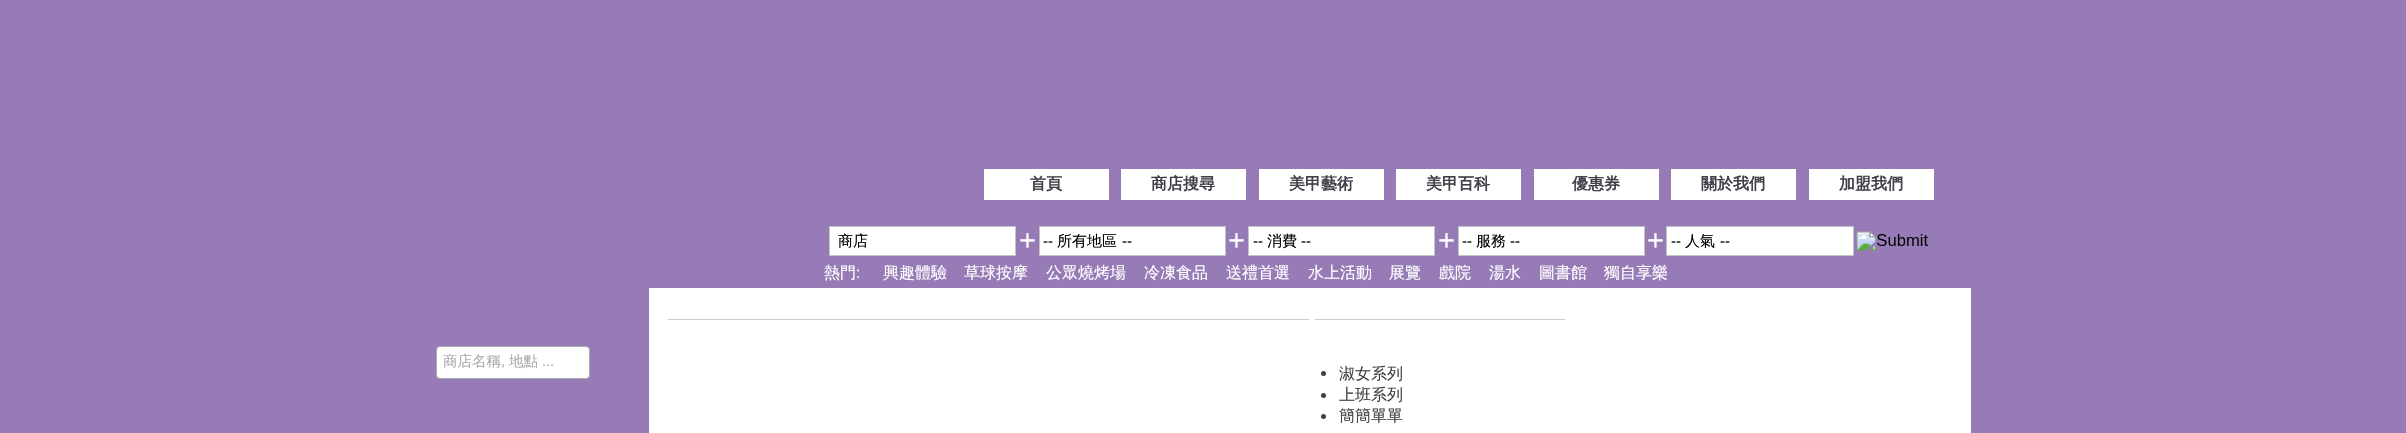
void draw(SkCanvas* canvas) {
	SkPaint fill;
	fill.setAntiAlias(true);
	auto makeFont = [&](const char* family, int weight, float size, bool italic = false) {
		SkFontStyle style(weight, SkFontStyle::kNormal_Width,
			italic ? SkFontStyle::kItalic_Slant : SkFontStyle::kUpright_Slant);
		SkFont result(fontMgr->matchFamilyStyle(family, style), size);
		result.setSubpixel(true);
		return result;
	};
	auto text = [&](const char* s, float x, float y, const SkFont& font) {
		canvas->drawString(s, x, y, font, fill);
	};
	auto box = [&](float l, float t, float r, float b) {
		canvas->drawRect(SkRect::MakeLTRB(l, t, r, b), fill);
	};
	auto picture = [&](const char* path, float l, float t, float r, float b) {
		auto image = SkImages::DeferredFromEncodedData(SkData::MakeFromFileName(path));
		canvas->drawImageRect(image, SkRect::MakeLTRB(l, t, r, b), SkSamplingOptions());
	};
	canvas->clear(0xFF977BB7);
	fill.setColor(0xFFFFFFFF);
	box(984, 169, 1109, 200);
	box(1121, 169, 1246, 200);
	box(1259, 169, 1384, 200);
	box(1396, 169, 1521, 200);
	box(1534, 169, 1659, 200);
	box(1671, 169, 1796, 200);
	box(1809, 169, 1934, 200);
	canvas->drawRect(SkRect::MakeLTRB(829.5f, 226.5f, 1015.5f, 255.5f), fill);
	fill.setStyle(SkPaint::kStroke_Style);
	fill.setStrokeWidth(1);
	fill.setColor(0xFFC3C3C3);
	canvas->drawRect(SkRect::MakeLTRB(829.5f, 226.5f, 1015.5f, 255.5f), fill);
	fill.setStyle(SkPaint::kFill_Style);
	fill.setColor(0xFFFFFFFF);
	canvas->drawRect(SkRect::MakeLTRB(1039.5f, 226.5f, 1225.5f, 255.5f), fill);
	fill.setStyle(SkPaint::kStroke_Style);
	fill.setColor(0xFFC3C3C3);
	canvas->drawRect(SkRect::MakeLTRB(1039.5f, 226.5f, 1225.5f, 255.5f), fill);
	fill.setStyle(SkPaint::kFill_Style);
	fill.setColor(0xFFFFFFFF);
	canvas->drawRect(SkRect::MakeLTRB(1248.5f, 226.5f, 1434.5f, 255.5f), fill);
	fill.setStyle(SkPaint::kStroke_Style);
	fill.setColor(0xFFC3C3C3);
	canvas->drawRect(SkRect::MakeLTRB(1248.5f, 226.5f, 1434.5f, 255.5f), fill);
	fill.setStyle(SkPaint::kFill_Style);
	fill.setColor(0xFFFFFFFF);
	canvas->drawRect(SkRect::MakeLTRB(1458.5f, 226.5f, 1644.5f, 255.5f), fill);
	fill.setStyle(SkPaint::kStroke_Style);
	fill.setColor(0xFFC3C3C3);
	canvas->drawRect(SkRect::MakeLTRB(1458.5f, 226.5f, 1644.5f, 255.5f), fill);
	fill.setStyle(SkPaint::kFill_Style);
	fill.setColor(0xFFFFFFFF);
	canvas->drawRect(SkRect::MakeLTRB(1666.5f, 226.5f, 1853.5f, 255.5f), fill);
	fill.setStyle(SkPaint::kStroke_Style);
	fill.setColor(0xFFC3C3C3);
	canvas->drawRect(SkRect::MakeLTRB(1666.5f, 226.5f, 1853.5f, 255.5f), fill);
	picture("image0.png", 1856, 231, 1928, 251);
	fill.setStyle(SkPaint::kFill_Style);
	fill.setColor(0xFFFFFFFF);
	canvas->drawRoundRect(SkRect::MakeLTRB(436.5f, 346.5f, 589.5f, 378.5f), 3.5f, 3.5f, fill);
	fill.setStyle(SkPaint::kStroke_Style);
	fill.setColor(0xFFAAAAAA);
	canvas->drawRoundRect(SkRect::MakeLTRB(436.5f, 346.5f, 589.5f, 378.5f), 3.5f, 3.5f, fill);
	fill.setStyle(SkPaint::kFill_Style);
	fill.setColor(0xFFFFFFFF);
	box(649, 288, 1971, 433);
	fill.setColor(0xFFCCCCCC);
	box(668, 319, 1309, 320);
	box(1315, 319, 1565, 320);
	fill.setColor(0xFF404042);
	canvas->drawCircle(1323.5f, 373.5f, 2.5f, fill);
	canvas->drawCircle(1323.5f, 395.5f, 2.5f, fill);
	canvas->drawCircle(1323.5f, 416.5f, 2.5f, fill);
	auto font1 = makeFont("WenQuanYi Zen Hei", 700, 16);
	fill.setColor(0xFF40404A);
	text("首頁", 1030, 189, font1);
	text("商店搜尋", 1151, 189, font1);
	text("美甲藝術", 1289, 189, font1);
	text("美甲百科", 1426, 189, font1);
	text("優惠券", 1572, 189, font1);
	text("關於我們", 1701, 189, font1);
	text("加盟我們", 1839, 189, font1);
	auto font2 = makeFont("WenQuanYi Zen Hei", 500, 15);
	fill.setColor(0xFF000000);
	text("商店", 838, 246, font2);
	auto font3 = makeFont("Liberation Sans", 400, 29);
	fill.setColor(0xFFFFFFFF);
	text("+", 1019, 250, font3);
	auto font4 = makeFont("Liberation Sans", 400, 15);
	fill.setColor(0xFF000000);
	text("--", 1043, 246, font4);
	text("所有地區", 1057, 246, font2);
	text("--", 1122, 246, font4);
	fill.setColor(0xFFFFFFFF);
	text("+", 1228, 250, font3);
	fill.setColor(0xFF000000);
	text("--", 1253, 246, font4);
	text("消費", 1267, 246, font2);
	text("--", 1301, 246, font4);
	fill.setColor(0xFFFFFFFF);
	text("+", 1438, 250, font3);
	fill.setColor(0xFF000000);
	text("--", 1462, 246, font4);
	text("服務", 1476, 246, font2);
	text("--", 1510, 246, font4);
	fill.setColor(0xFFFFFFFF);
	text("+", 1647, 250, font3);
	fill.setColor(0xFF000000);
	text("--", 1671, 246, font4);
	text("人氣", 1685, 246, font2);
	text("--", 1720, 246, font4);
	auto font5 = makeFont("WenQuanYi Zen Hei", 500, 16);
	fill.setColor(0xFFFFFFFF);
	text("熱門", 824, 278, font5);
	auto font6 = makeFont("Liberation Sans", 400, 16);
	text(":", 856, 278, font6);
	text("興趣體驗", 883, 278, font5);
	text("草球按摩", 964, 278, font5);
	text("公眾燒烤場", 1046, 278, font5);
	text("冷凍食品", 1144, 278, font5);
	text("送禮首選", 1226, 278, font5);
	text("水上活動", 1308, 278, font5);
	text("展覽", 1389, 278, font5);
	text("戲院", 1439, 278, font5);
	text("湯水", 1489, 278, font5);
	text("圖書館", 1539, 278, font5);
	text("獨自享樂", 1604, 278, font5);
	auto font7 = makeFont("WenQuanYi Zen Hei", 500, 14.5f);
	fill.setColor(0xFFAAAAAA);
	text("商店名稱", 443, 366, font7);
	auto font8 = makeFont("Liberation Sans", 400, 14.5f);
	text(",", 501, 366, font8);
	text("地點", 509, 366, font7);
	text("...", 542, 366, font8);
	fill.setColor(0xFF404042);
	text("淑女系列", 1339, 379, font5);
	text("上班系列", 1339, 400, font5);
	text("簡簡單單", 1339, 421, font5);
}
